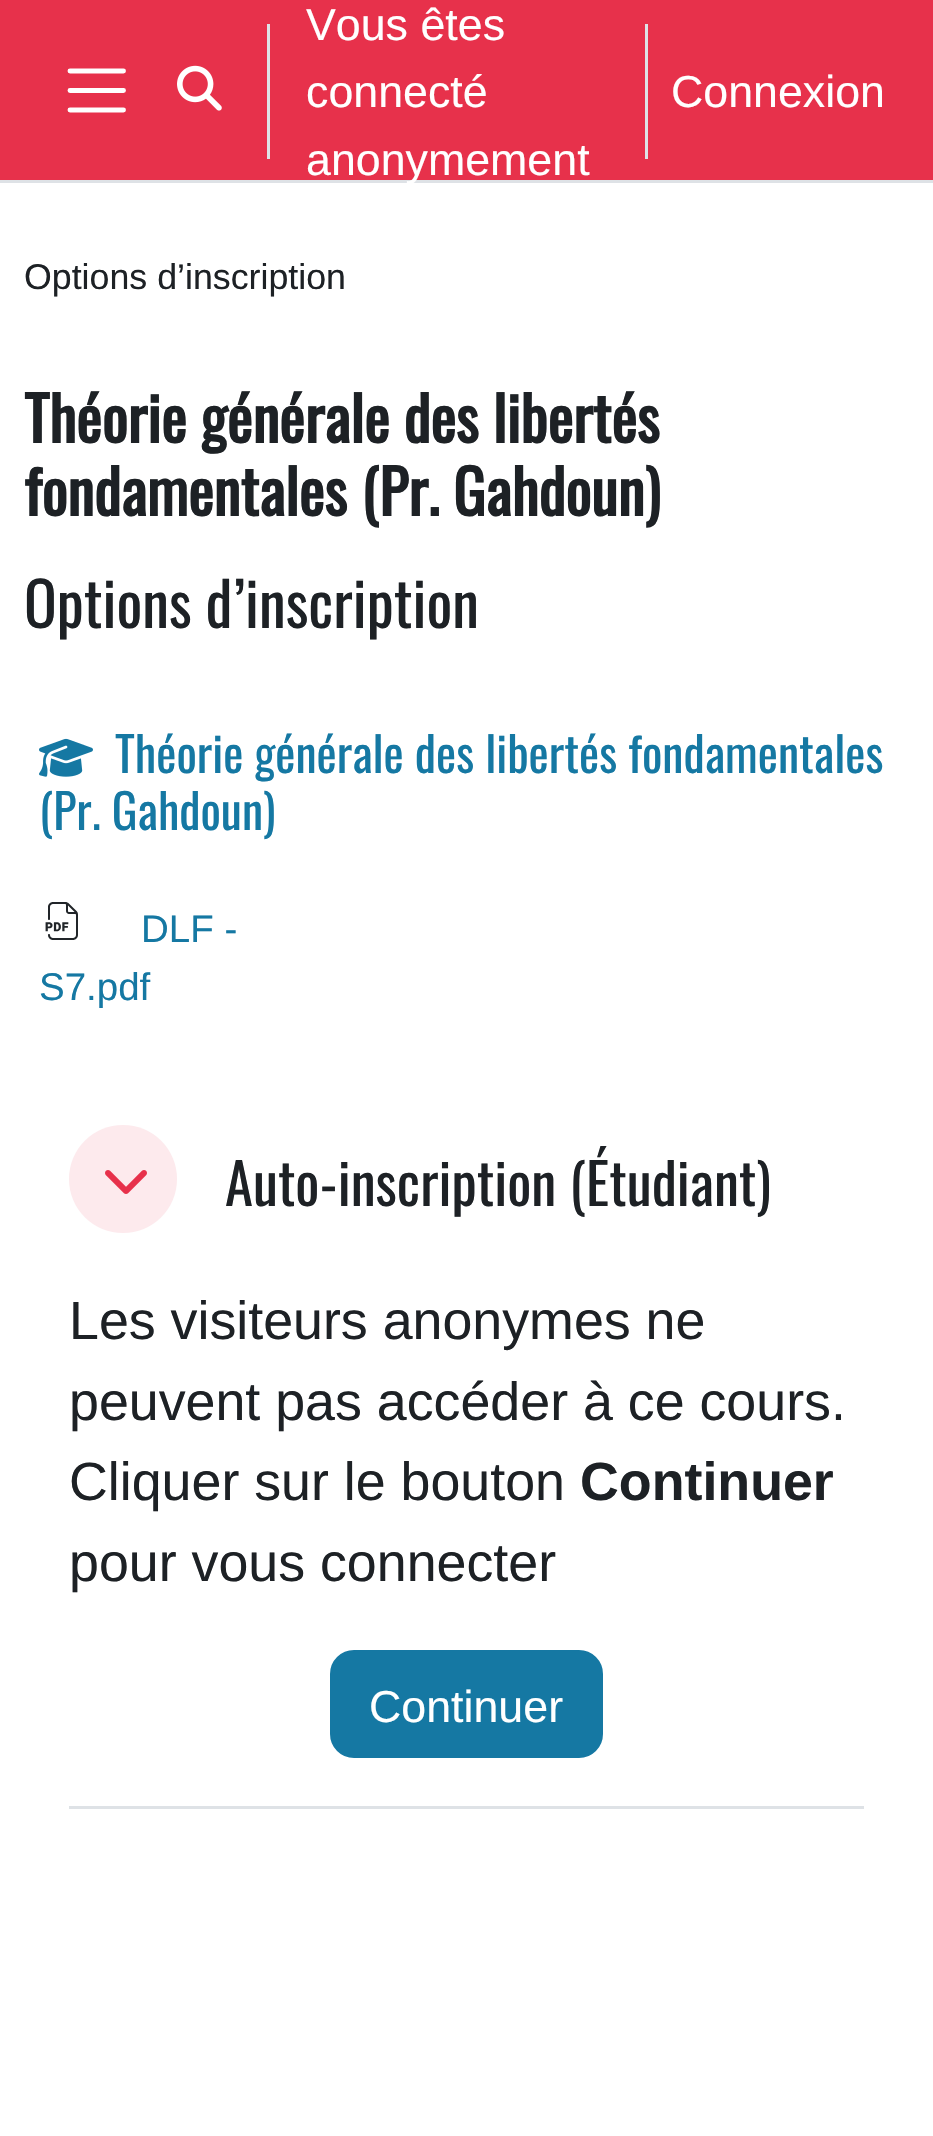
void draw(SkCanvas* canvas) {
	SkPaint fill;
	fill.setAntiAlias(true);
	auto makeFont = [&](const char* family, int weight, float size, bool italic = false) {
		SkFontStyle style(weight, SkFontStyle::kNormal_Width,
			italic ? SkFontStyle::kItalic_Slant : SkFontStyle::kUpright_Slant);
		SkFont result(fontMgr->matchFamilyStyle(family, style), size);
		result.setSubpixel(true);
		return result;
	};
	auto text = [&](const char* s, float x, float y, const SkFont& font) {
		canvas->drawString(s, x, y, font, fill);
	};
	auto box = [&](float l, float t, float r, float b) {
		canvas->drawRect(SkRect::MakeLTRB(l, t, r, b), fill);
	};
	auto picture = [&](const char* path, float l, float t, float r, float b) {
		auto image = SkImages::DeferredFromEncodedData(SkData::MakeFromFileName(path));
		canvas->drawImageRect(image, SkRect::MakeLTRB(l, t, r, b), SkSamplingOptions());
	};
	canvas->clear(0xFFFFFFFF);
	fill.setColor(0xFFE7314B);
	box(0, 0, 933, 180);
	fill.setColor(0xFFDEE2E6);
	box(0, 180, 933, 183);
	fill.setStyle(SkPaint::kStroke_Style);
	fill.setStrokeWidth(4.9f);
	fill.setStrokeCap(SkPaint::kRound_Cap);
	fill.setColor(0xFFFFFFFF);
	canvas->drawPath(SkPathBuilder().moveTo(70, 71).lineTo(123.5f, 71).moveTo(70, 90.5f).lineTo(123.5f, 90.5f).moveTo(70, 110).lineTo(123.5f, 110).detach(), fill);
	picture("image0.png", 177, 65, 222, 111);
	fill.setStyle(SkPaint::kFill_Style);
	fill.setColor(0xFFDEE2E6);
	box(267, 24, 270, 159);
	box(645, 24, 648, 159);
	picture("image1.png", 39, 738, 93, 777);
	picture("image2.png", 45, 902, 78, 940);
	box(69, 1806, 864, 1809);
	fill.setColor(0xFFFDEAED);
	canvas->drawCircle(123, 1179, 54, fill);
	picture("image3.png", 105, 1170, 147, 1194);
	fill.setColor(0xFF1578A3);
	canvas->drawRoundRect(SkRect::MakeLTRB(331.5f, 1651.5f, 601.5f, 1756.5f), 22.5f, 22.5f, fill);
	fill.setStyle(SkPaint::kStroke_Style);
	fill.setStrokeWidth(3);
	fill.setStrokeCap(SkPaint::kButt_Cap);
	canvas->drawRoundRect(SkRect::MakeLTRB(331.5f, 1651.5f, 601.5f, 1756.5f), 22.5f, 22.5f, fill);
	auto font1 = makeFont("Liberation Sans", 400, 44.75f);
	fill.setStyle(SkPaint::kFill_Style);
	fill.setColor(0xFFFFFFFF);
	text("Vous êtes", 306, 40, font1);
	text("connecté", 306, 107, font1);
	text("Connexion", 671, 107, font1);
	text("anonymement", 306, 175, font1);
	auto font2 = makeFont("Liberation Sans", 400, 35.75f);
	fill.setColor(0xFF1D2125);
	text("Options d’inscription", 24, 289, font2);
	auto font3 = makeFont("Oswald", 700, 60.75f);
	text("Théorie générale des libertés", 24, 443, font3);
	text("fondamentales (Pr. Gahdoun)", 24, 516, font3);
	auto font4 = makeFont("Oswald", 400, 60.75f);
	text("Options d’inscription", 24, 628, font4);
	auto font5 = makeFont("Oswald", 400, 48);
	fill.setColor(0xFF1578A3);
	text("Théorie générale des libertés fondamentales", 115, 773, font5);
	text("(Pr. Gahdoun)", 39, 830, font5);
	auto font6 = makeFont("Liberation Sans", 400, 38.5f);
	text("DLF -", 141, 942, font6);
	text("S7.pdf", 39, 1000, font6);
	auto font7 = makeFont("Oswald", 400, 56.75f);
	fill.setColor(0xFF1D2125);
	text("Auto-inscription (Étudiant)", 225, 1206, font7);
	auto font8 = makeFont("Liberation Sans", 400, 53.75f);
	text("Les visiteurs anonymes ne", 69, 1339, font8);
	text("peuvent pas accéder à ce cours.", 69, 1420, font8);
	text("Cliquer sur le bouton", 69, 1500, font8);
	auto font9 = makeFont("Liberation Sans", 700, 53.75f);
	text("Continuer", 580, 1500, font9);
	text("pour vous connecter", 69, 1581, font8);
	fill.setColor(0xFFFFFFFF);
	text("Continuer", 369, 1722, font1);
}
